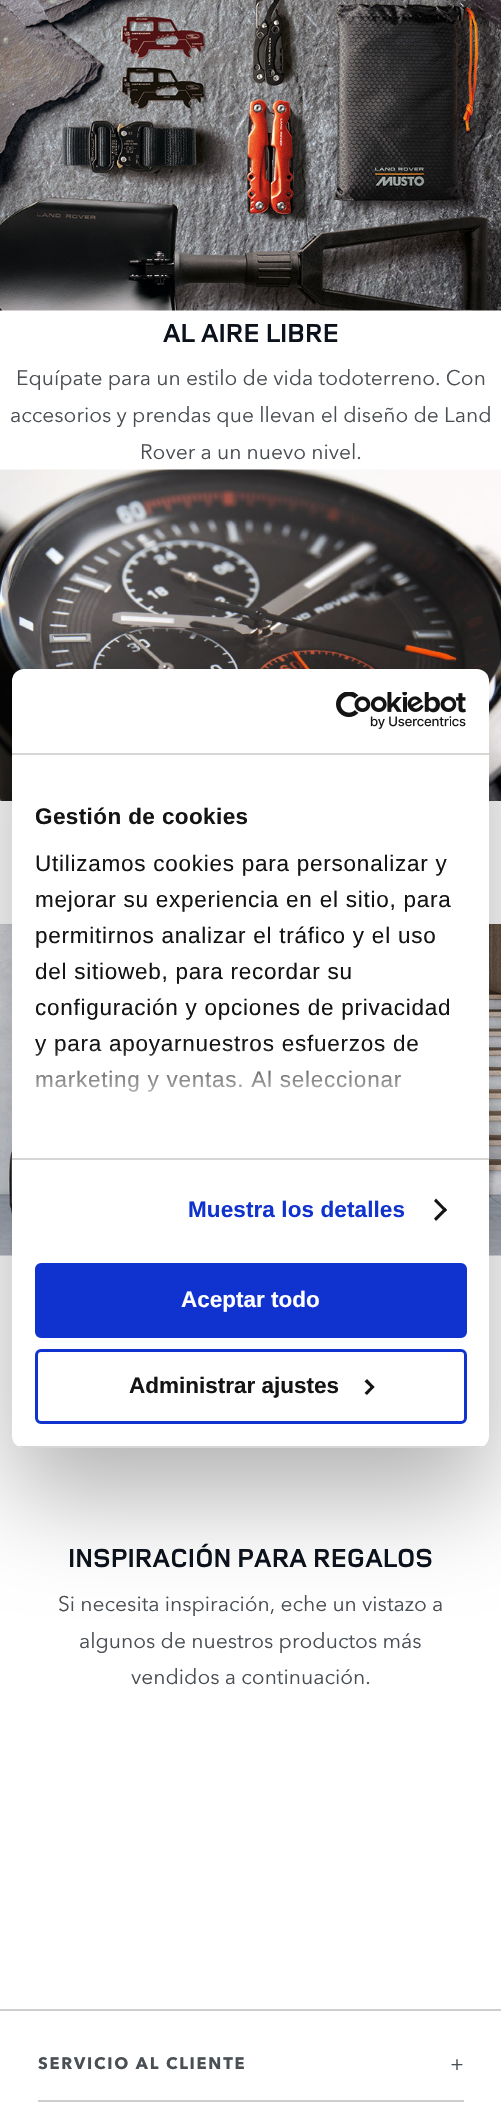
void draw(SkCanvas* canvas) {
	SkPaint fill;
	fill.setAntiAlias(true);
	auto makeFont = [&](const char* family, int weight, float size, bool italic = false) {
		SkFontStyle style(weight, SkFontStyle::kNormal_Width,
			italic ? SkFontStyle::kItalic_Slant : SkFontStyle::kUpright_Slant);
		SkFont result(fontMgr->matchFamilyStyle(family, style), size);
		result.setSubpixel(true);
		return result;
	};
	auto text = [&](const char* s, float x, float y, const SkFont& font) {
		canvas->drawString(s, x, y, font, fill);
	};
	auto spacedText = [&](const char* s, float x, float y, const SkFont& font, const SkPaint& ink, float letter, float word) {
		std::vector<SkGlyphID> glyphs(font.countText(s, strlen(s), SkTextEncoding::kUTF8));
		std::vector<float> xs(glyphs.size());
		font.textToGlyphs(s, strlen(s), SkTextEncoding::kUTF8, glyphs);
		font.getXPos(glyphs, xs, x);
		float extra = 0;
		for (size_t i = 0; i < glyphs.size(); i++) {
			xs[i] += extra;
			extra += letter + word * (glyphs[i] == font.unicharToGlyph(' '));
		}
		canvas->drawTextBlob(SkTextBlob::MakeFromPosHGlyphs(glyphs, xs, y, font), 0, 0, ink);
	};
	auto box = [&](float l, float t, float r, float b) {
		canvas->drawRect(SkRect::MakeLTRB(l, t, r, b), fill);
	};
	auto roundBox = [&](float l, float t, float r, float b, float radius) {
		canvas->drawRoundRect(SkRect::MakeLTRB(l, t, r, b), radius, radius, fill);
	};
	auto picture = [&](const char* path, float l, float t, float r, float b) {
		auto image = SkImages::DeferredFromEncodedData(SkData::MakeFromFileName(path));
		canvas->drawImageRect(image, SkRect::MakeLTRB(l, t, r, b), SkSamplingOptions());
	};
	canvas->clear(0xFFFFFFFF);
	picture("image0.png", 0, 0, 501, 311);
	picture("image1.png", 0, 469, 501, 801);
	picture("image2.png", 0, 924, 501, 1256);
	fill.setColor(0xFFCECECE);
	box(0, 2009, 501, 2011);
	box(38, 2100, 464, 2102);
	fill.setColor(0x4D000000);
	fill.setMaskFilter(SkMaskFilter::MakeBlur(kNormal_SkBlurStyle, 51));
	canvas->drawRoundRect(SkRect::MakeLTRB(12, 717, 489, 1496), 12, 12, fill);
	fill.setMaskFilter(nullptr);
	fill.setColor(0xFFFFFFFF);
	roundBox(12, 669, 489, 1448, 12);
	fill.setColor(0xFFD6D6D6);
	box(12, 753, 489, 755);
	picture("image3.png", 336, 692, 466, 729);
	box(12, 1158, 489, 1160);
	fill.setColor(0xFF141414);
	canvas->drawPath(SkPathBuilder().moveTo(436, 1198.5f).lineTo(447, 1210).lineTo(445, 1212).lineTo(434, 1201).close().detach(), fill);
	canvas->drawPath(SkPathBuilder().moveTo(445, 1207.5f).lineTo(447, 1210).lineTo(436, 1221).lineTo(434, 1218.5f).close().detach(), fill);
	canvas->save();
	canvas->clipPath(SkPathBuilder().moveTo(24, 669).lineTo(477, 669).cubicTo(483.5f, 669, 489, 674.5f, 489, 681).lineTo(489, 1436).cubicTo(489, 1442.5f, 483.5f, 1448, 477, 1448).lineTo(24, 1448).cubicTo(17.5f, 1448, 12, 1442.5f, 12, 1436).lineTo(12, 681).cubicTo(12, 674.5f, 17.5f, 669, 24, 669).close().detach(), true);
	fill.setColor(0xFFD6D6D6);
	box(12, 1446, 489, 1448);
	canvas->restore();
	fill.setColor(0xFF1032CF);
	canvas->drawRoundRect(SkRect::MakeLTRB(36.5f, 1264.5f, 465.5f, 1336.5f), 4.5f, 4.5f, fill);
	fill.setStyle(SkPaint::kStroke_Style);
	fill.setStrokeWidth(3);
	canvas->drawRoundRect(SkRect::MakeLTRB(36.5f, 1264.5f, 465.5f, 1336.5f), 4.5f, 4.5f, fill);
	canvas->drawRoundRect(SkRect::MakeLTRB(36.5f, 1350.5f, 465.5f, 1422.5f), 4.5f, 4.5f, fill);
	fill.setStyle(SkPaint::kFill_Style);
	fill.setColor(0xFF141414);
	canvas->drawPath(SkPathBuilder().moveTo(367, 1379).lineTo(374.5f, 1387).lineTo(372.5f, 1389).lineTo(364.5f, 1381.5f).close().detach(), fill);
	canvas->drawPath(SkPathBuilder().moveTo(372.5f, 1385).lineTo(374.5f, 1387).lineTo(367, 1395).lineTo(364.5f, 1393).close().detach(), fill);
	auto font1 = makeFont("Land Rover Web", 700, 27);
	fill.setColor(0xFF0C121C);
	text("AL AIRE LIBRE", 163, 342, font1);
	auto font2 = makeFont("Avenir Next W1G", 400, 21);
	fill.setColor(0xFF4A4F54);
	text("Equípate para un estilo de vida todoterreno. Con", 16, 385, font2);
	text("accesorios y prendas que llevan el diseño de Land", 10, 422, font2);
	text("Rover a un nuevo nivel.", 140, 459, font2);
	fill.setColor(0xFF0C121C);
	text("INSPIRACIÓN PARA REGALOS", 68, 1567, font1);
	fill.setColor(0xFF4A4F54);
	text("Si necesita inspiración, eche un vistazo a", 58, 1611, font2);
	text("algunos de nuestros productos más", 79, 1648, font2);
	text("vendidos a continuación.", 131, 1684, font2);
	auto font3 = makeFont("Avenir Next W1G", 700, 16.5f);
	spacedText("SERVICIO AL CLIENTE", 38, 2069, font3, fill, 1.75f, 0);
	text("+", 450, 2071, font2);
	auto font4 = makeFont("Liberation Sans", 700, 22.5f);
	fill.setColor(0xFF141414);
	spacedText("Gestión de cookies", 35, 824, font4, fill, 0.4f, 0);
	auto font5 = makeFont("Liberation Sans", 400, 22.5f);
	spacedText("Utilizamos cookies para personalizar y", 35, 871, font5, fill, 0.75f, 0);
	spacedText("mejorar su experiencia en el sitio, para", 35, 907, font5, fill, 0.75f, 0);
	spacedText("permitirnos analizar el tráfico y el uso", 35, 943, font5, fill, 0.75f, 0);
	spacedText("del sitioweb, para recordar su", 35, 979, font5, fill, 0.75f, 0);
	spacedText("configuración y opciones de privacidad", 35, 1015, font5, fill, 0.75f, 0);
	spacedText("y para apoyarnuestros esfuerzos de", 35, 1051, font5, fill, 0.75f, 0);
	spacedText("marketing y ventas. Al seleccionar", 35, 1087, font5, fill, 0.75f, 0);
	{
		const SkColor colors[] = {0xFFFFFFFF, 0xCCFFFFFF, 0x00FFFFFF};
		const float stops[] = {0, 0.5f, 1};
		const SkPoint ends[] = {{241, 1157}, {241, 1045}};
		fill.setShader(SkGradientShader::MakeLinear(ends, colors, stops, 3, SkTileMode::kClamp));
		fill.setAlpha(255);
	}
	box(35, 1047, 417, 1092);
	fill.setShader(nullptr);
	fill.setColor(0xFF1032CF);
	spacedText("Muestra los detalles", 188, 1217, font4, fill, 0.1f, 0);
	fill.setColor(0xFFFFFFFF);
	text("Aceptar todo", 181, 1307, font4);
	fill.setColor(0xFF141414);
	text("Administrar ajustes", 129, 1393, font4);
}
